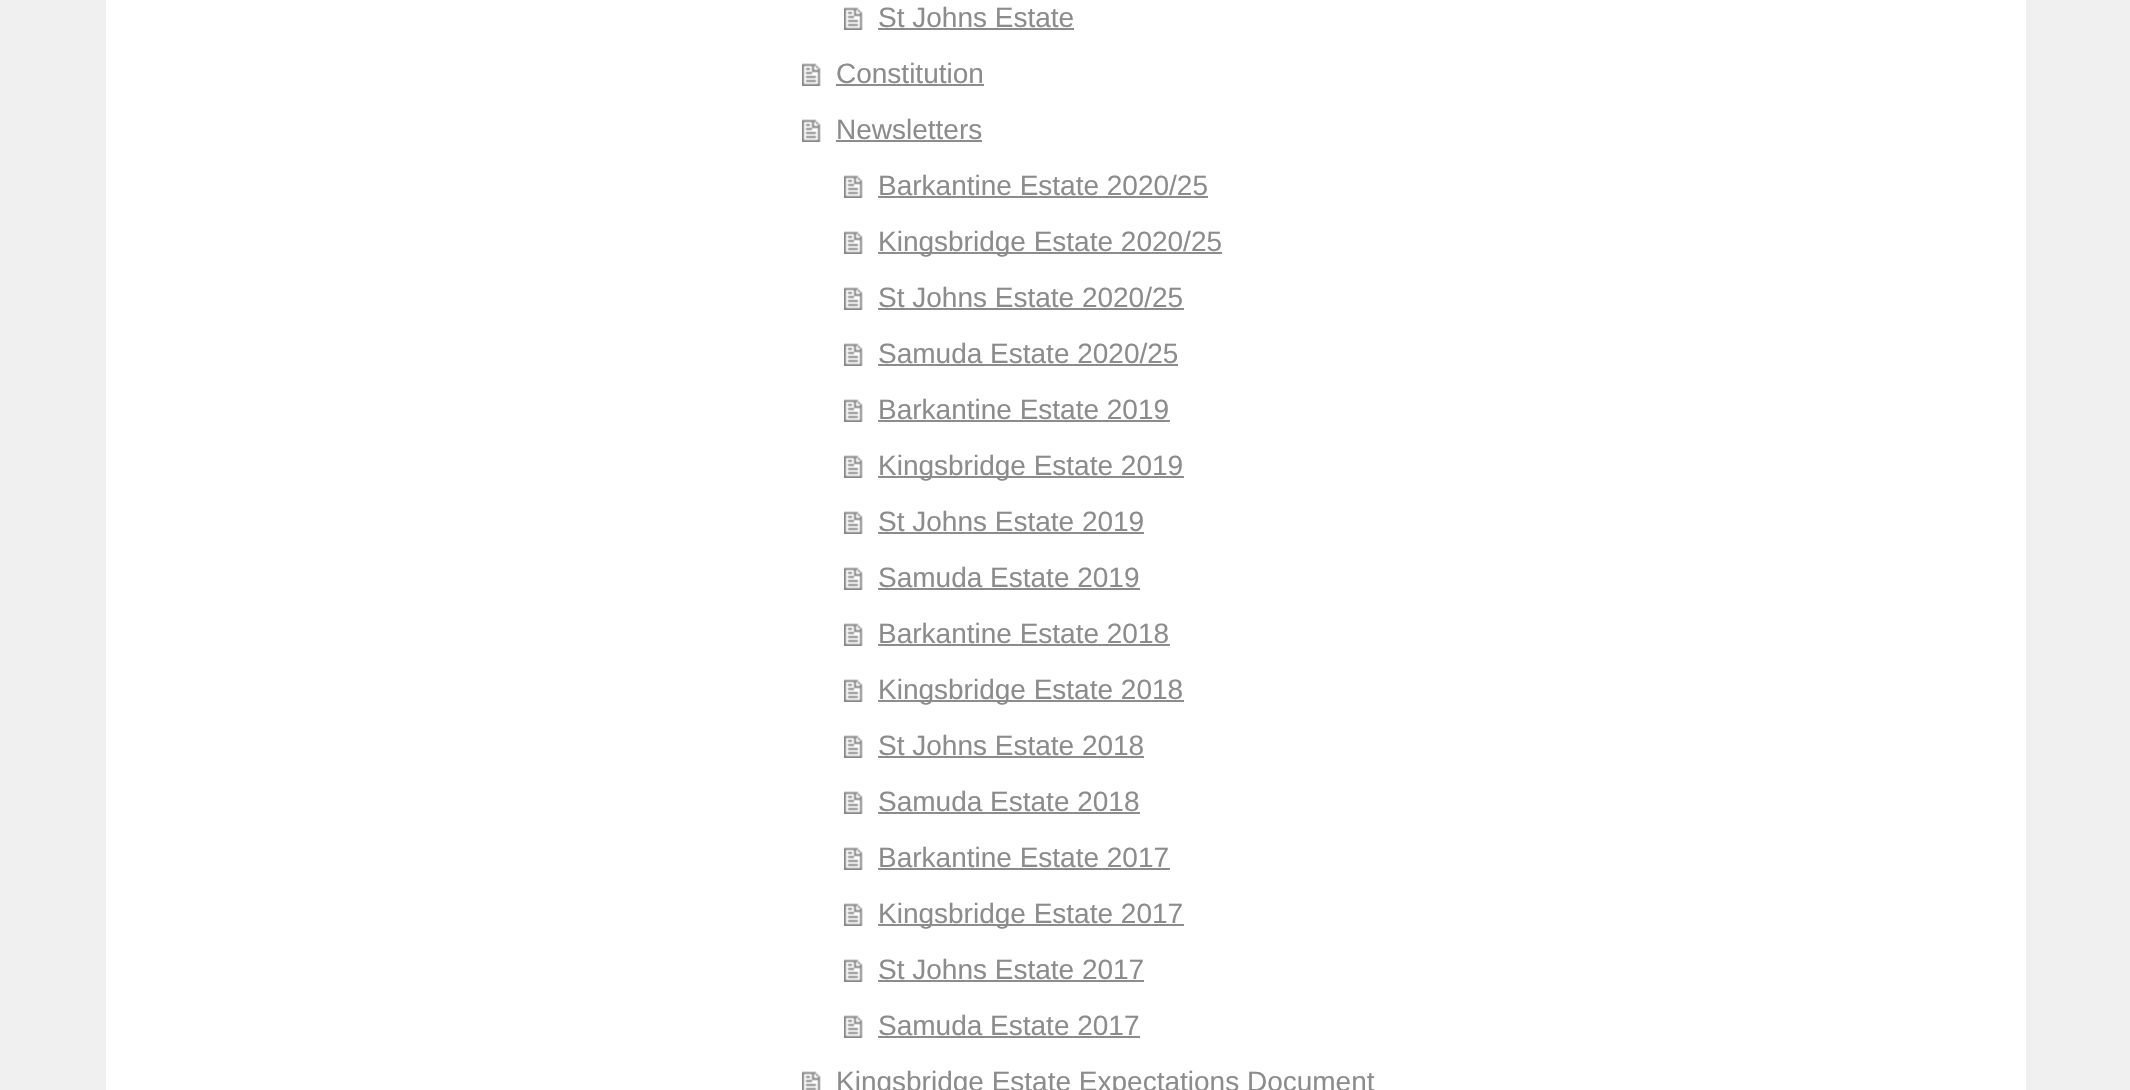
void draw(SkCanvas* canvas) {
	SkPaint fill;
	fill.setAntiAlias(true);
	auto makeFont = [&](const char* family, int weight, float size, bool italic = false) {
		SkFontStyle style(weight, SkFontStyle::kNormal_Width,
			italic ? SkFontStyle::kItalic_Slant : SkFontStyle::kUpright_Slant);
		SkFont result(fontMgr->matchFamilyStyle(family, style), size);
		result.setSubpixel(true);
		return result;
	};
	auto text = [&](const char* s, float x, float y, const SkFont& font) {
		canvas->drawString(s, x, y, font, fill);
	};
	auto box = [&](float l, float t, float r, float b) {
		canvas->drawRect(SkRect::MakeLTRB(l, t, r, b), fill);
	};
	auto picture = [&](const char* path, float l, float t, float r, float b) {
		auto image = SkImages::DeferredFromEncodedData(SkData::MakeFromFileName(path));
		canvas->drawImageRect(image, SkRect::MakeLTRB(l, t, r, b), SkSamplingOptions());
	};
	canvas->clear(0xFFF0F0F0);
	fill.setColor(0xFFFFFFFF);
	box(106, 0, 2026, 1090);
	picture("image0.png", 844, 7, 863, 30);
	fill.setColor(0xFF8C8C8C);
	box(878, 28, 1074, 30);
	picture("image0.png", 802, 63, 821, 86);
	box(836, 84, 984, 86);
	picture("image0.png", 802, 119, 821, 142);
	box(836, 140, 982, 142);
	picture("image0.png", 844, 175, 863, 198);
	box(878, 196, 1208, 198);
	picture("image0.png", 844, 231, 863, 254);
	box(878, 252, 1222, 254);
	picture("image0.png", 844, 287, 863, 310);
	box(878, 308, 1184, 310);
	picture("image0.png", 844, 343, 863, 366);
	box(878, 364, 1178, 366);
	picture("image0.png", 844, 399, 863, 422);
	box(878, 420, 1170, 422);
	picture("image0.png", 844, 455, 863, 478);
	box(878, 476, 1184, 478);
	picture("image0.png", 844, 511, 863, 534);
	box(878, 532, 1144, 534);
	picture("image0.png", 844, 567, 863, 590);
	box(878, 588, 1140, 590);
	picture("image0.png", 844, 623, 863, 646);
	box(878, 644, 1170, 646);
	picture("image0.png", 844, 679, 863, 702);
	box(878, 700, 1184, 702);
	picture("image0.png", 844, 735, 863, 758);
	box(878, 756, 1144, 758);
	picture("image0.png", 844, 791, 863, 814);
	box(878, 812, 1140, 814);
	picture("image0.png", 844, 847, 863, 870);
	box(878, 868, 1170, 870);
	picture("image0.png", 844, 903, 863, 926);
	box(878, 924, 1184, 926);
	picture("image0.png", 844, 959, 863, 982);
	box(878, 980, 1144, 982);
	picture("image0.png", 844, 1015, 863, 1038);
	box(878, 1036, 1140, 1038);
	picture("image1.png", 802, 1071, 821, 1090);
	auto font1 = makeFont("Liberation Sans", 400, 28);
	text("St Johns Estate", 878, 27, font1);
	text("Constitution", 836, 83, font1);
	text("Newsletters", 836, 139, font1);
	text("Barkantine Estate 2020/25", 878, 195, font1);
	text("Kingsbridge Estate 2020/25", 878, 251, font1);
	text("St Johns Estate 2020/25", 878, 307, font1);
	text("Samuda Estate 2020/25", 878, 363, font1);
	text("Barkantine Estate 2019", 878, 419, font1);
	text("Kingsbridge Estate 2019", 878, 475, font1);
	text("St Johns Estate 2019", 878, 531, font1);
	text("Samuda Estate 2019", 878, 587, font1);
	text("Barkantine Estate 2018", 878, 643, font1);
	text("Kingsbridge Estate 2018", 878, 699, font1);
	text("St Johns Estate 2018", 878, 755, font1);
	text("Samuda Estate 2018", 878, 811, font1);
	text("Barkantine Estate 2017", 878, 867, font1);
	text("Kingsbridge Estate 2017", 878, 923, font1);
	text("St Johns Estate 2017", 878, 979, font1);
	text("Samuda Estate 2017", 878, 1035, font1);
	text("Kingsbridge Estate Expectations Document", 836, 1091, font1);
}
